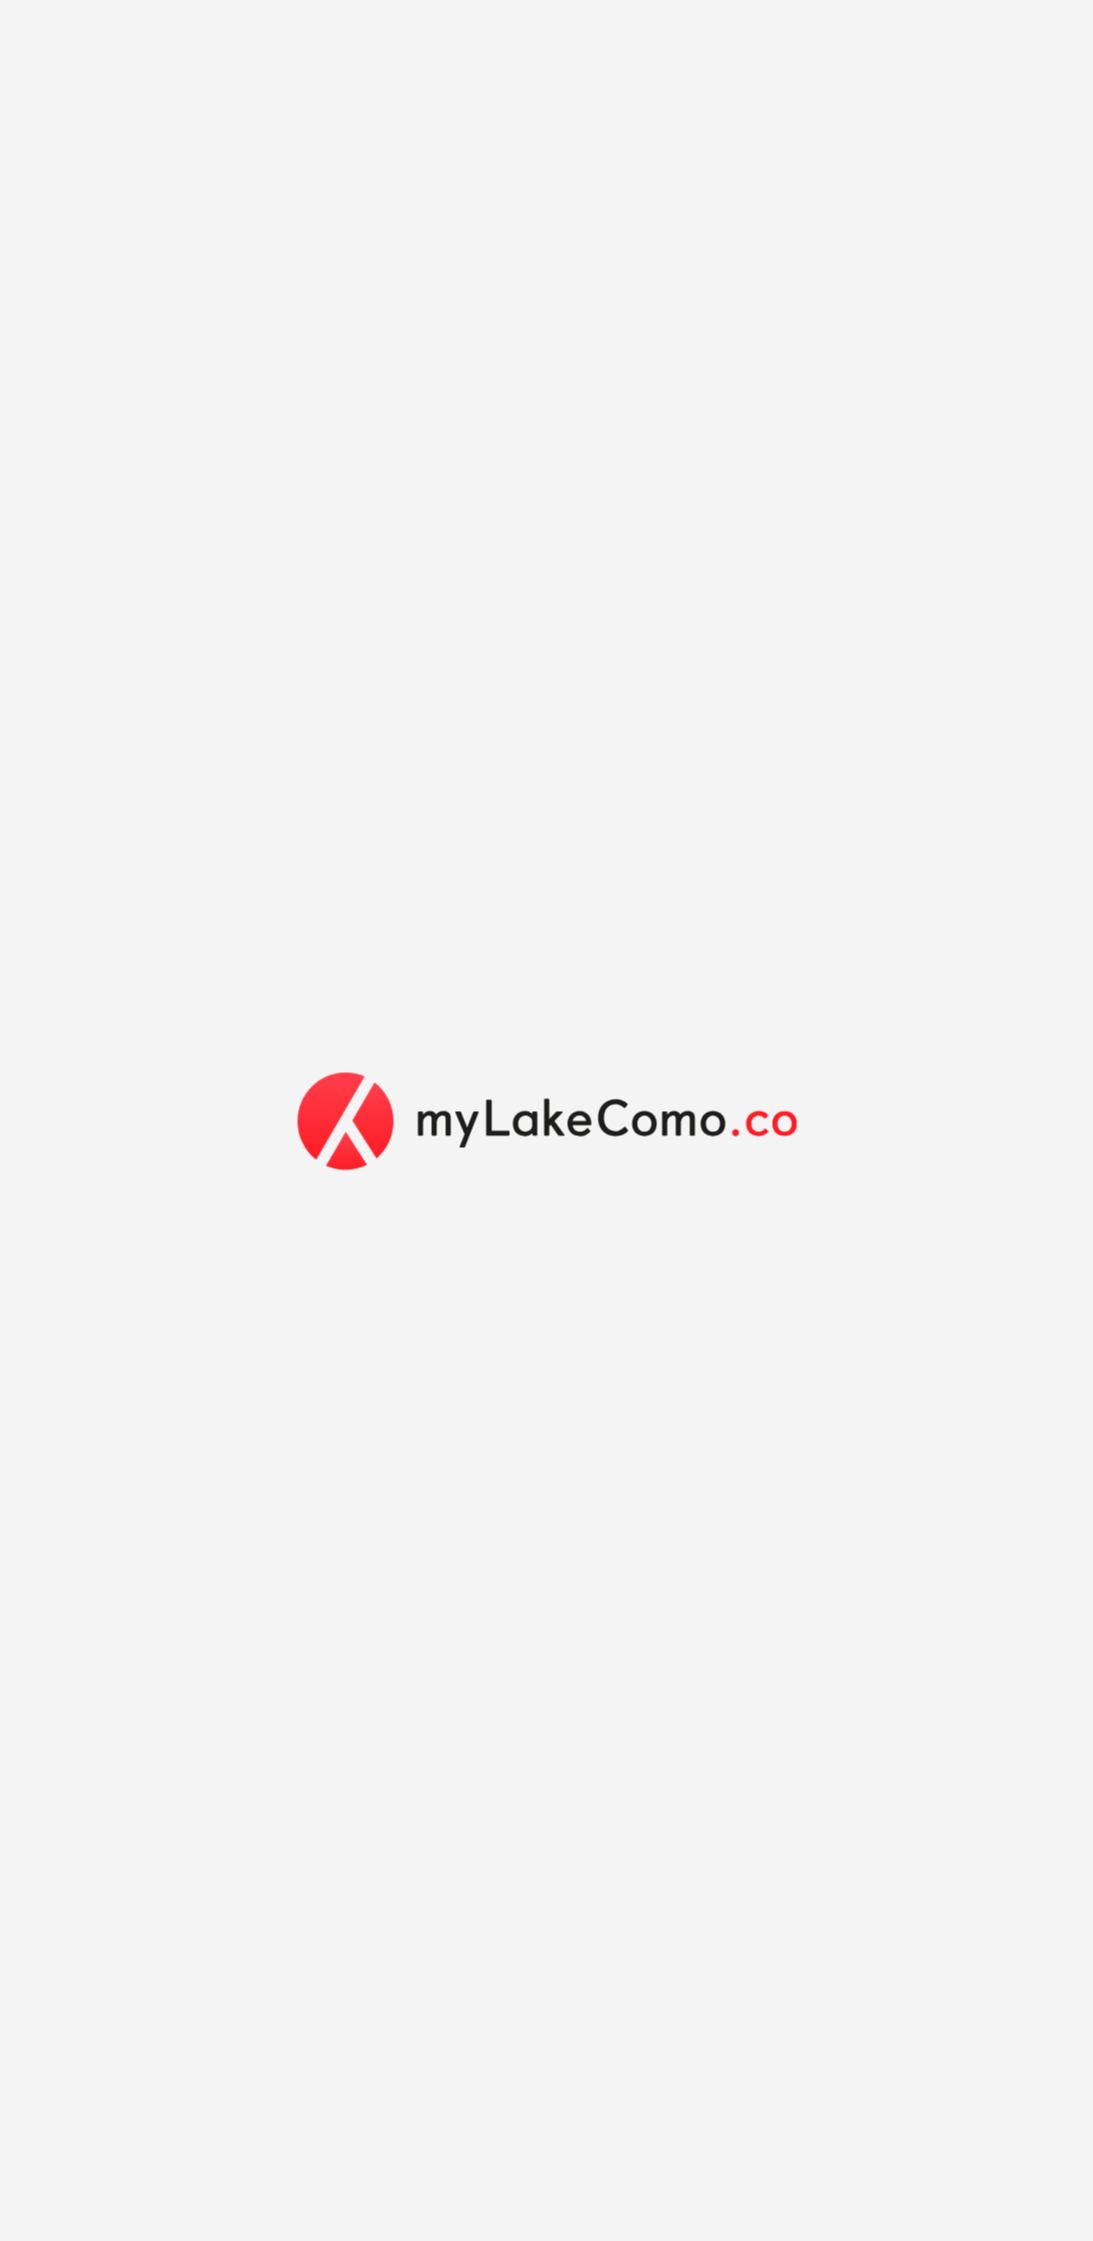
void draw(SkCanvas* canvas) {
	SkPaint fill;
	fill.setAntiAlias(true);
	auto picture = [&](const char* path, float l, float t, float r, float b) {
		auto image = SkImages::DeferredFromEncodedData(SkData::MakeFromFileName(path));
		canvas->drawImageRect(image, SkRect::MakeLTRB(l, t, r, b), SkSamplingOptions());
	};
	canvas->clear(0xFFF4F4F4);
	picture("image0.png", 297, 1072, 798, 1171);
}
